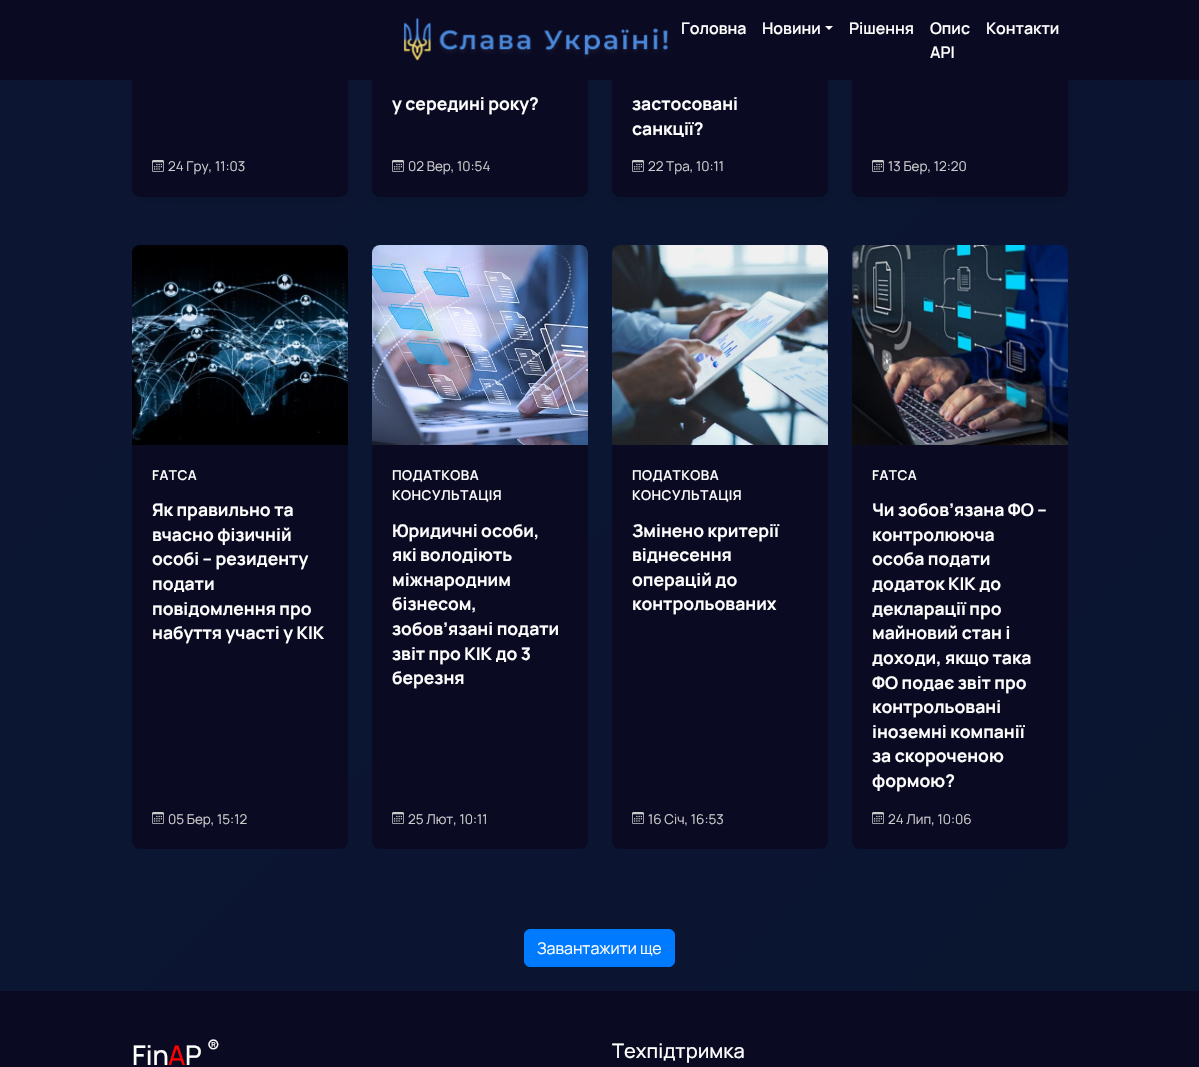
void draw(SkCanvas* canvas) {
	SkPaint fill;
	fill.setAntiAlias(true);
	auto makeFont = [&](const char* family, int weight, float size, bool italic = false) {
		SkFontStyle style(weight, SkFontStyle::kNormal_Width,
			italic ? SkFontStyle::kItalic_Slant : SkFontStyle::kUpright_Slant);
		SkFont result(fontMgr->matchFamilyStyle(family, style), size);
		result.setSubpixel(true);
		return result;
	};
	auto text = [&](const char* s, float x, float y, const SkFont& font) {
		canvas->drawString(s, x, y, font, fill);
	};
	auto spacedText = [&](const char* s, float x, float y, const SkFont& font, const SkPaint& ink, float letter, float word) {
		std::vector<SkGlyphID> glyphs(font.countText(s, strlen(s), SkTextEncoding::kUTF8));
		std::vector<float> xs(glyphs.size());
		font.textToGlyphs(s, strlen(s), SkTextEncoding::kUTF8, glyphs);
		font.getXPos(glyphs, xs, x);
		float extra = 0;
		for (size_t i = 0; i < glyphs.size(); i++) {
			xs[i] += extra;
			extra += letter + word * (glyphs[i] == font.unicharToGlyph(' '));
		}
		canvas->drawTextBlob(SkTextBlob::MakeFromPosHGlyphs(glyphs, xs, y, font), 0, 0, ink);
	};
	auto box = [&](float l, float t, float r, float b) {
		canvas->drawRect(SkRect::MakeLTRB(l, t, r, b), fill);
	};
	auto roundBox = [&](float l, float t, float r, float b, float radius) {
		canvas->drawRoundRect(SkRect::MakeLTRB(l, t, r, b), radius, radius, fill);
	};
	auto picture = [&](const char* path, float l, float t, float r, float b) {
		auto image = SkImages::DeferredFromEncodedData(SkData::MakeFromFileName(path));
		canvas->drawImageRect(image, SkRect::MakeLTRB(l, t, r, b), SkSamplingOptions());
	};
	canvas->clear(0xFFFFFFFF);
	{
		const SkColor colors[] = {0xFF0C1633, 0xFF0A1530};
		const float stops[] = {0, 1};
		const SkPoint ends[] = {{33, -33}, {1166, 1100}};
		fill.setShader(SkGradientShader::MakeLinear(ends, colors, stops, 2, SkTileMode::kClamp));
		fill.setAlpha(255);
	}
	box(0, 80, 1199, 991);
	fill.setShader(nullptr);
	fill.setColor(0x1A000000);
	fill.setMaskFilter(SkMaskFilter::MakeBlur(kNormal_SkBlurStyle, 6));
	canvas->drawRoundRect(SkRect::MakeLTRB(132, -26, 348, 201), 8, 8, fill);
	fill.setMaskFilter(nullptr);
	fill.setColor(0xFF0A0A23);
	roundBox(132, -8, 348, 197, 8);
	fill.setColor(0x1A000000);
	fill.setMaskFilter(SkMaskFilter::MakeBlur(kNormal_SkBlurStyle, 6));
	canvas->drawRoundRect(SkRect::MakeLTRB(372, -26, 588, 201), 8, 8, fill);
	fill.setMaskFilter(nullptr);
	fill.setColor(0xFF0A0A23);
	roundBox(372, -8, 588, 197, 8);
	fill.setColor(0x1A000000);
	fill.setMaskFilter(SkMaskFilter::MakeBlur(kNormal_SkBlurStyle, 6));
	canvas->drawRoundRect(SkRect::MakeLTRB(612, -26, 828, 201), 8, 8, fill);
	fill.setMaskFilter(nullptr);
	fill.setColor(0xFF0A0A23);
	roundBox(612, -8, 828, 197, 8);
	fill.setColor(0x1A000000);
	fill.setMaskFilter(SkMaskFilter::MakeBlur(kNormal_SkBlurStyle, 6));
	canvas->drawRoundRect(SkRect::MakeLTRB(852, -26, 1068, 201), 8, 8, fill);
	fill.setMaskFilter(nullptr);
	fill.setColor(0xFF0A0A23);
	roundBox(852, -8, 1068, 197, 8);
	box(0, 0, 1199, 80);
	picture("image0.png", 403, 18, 669, 61);
	fill.setColor(0xFFFFFFFF);
	canvas->drawPath(SkPathBuilder().moveTo(825, 26).lineTo(833, 26).lineTo(829, 30).close().detach(), fill);
	picture("image1.png", 152, 160, 164, 172);
	picture("image1.png", 392, 160, 404, 172);
	picture("image1.png", 632, 160, 644, 172);
	picture("image1.png", 872, 160, 884, 172);
	fill.setColor(0xFF0A0A23);
	roundBox(132, 245, 348, 849, 8);
	picture("image2.png", 132, 245, 348, 445);
	picture("image1.png", 152, 812, 164, 824);
	roundBox(372, 245, 588, 849, 8);
	picture("image3.png", 372, 245, 588, 445);
	picture("image1.png", 392, 812, 404, 824);
	roundBox(612, 245, 828, 849, 8);
	picture("image4.png", 612, 245, 828, 445);
	picture("image1.png", 632, 812, 644, 824);
	roundBox(852, 245, 1068, 849, 8);
	picture("image5.png", 852, 245, 1068, 445);
	picture("image1.png", 872, 812, 884, 824);
	fill.setColor(0xFF007AFF);
	canvas->drawRoundRect(SkRect::MakeLTRB(524.5f, 929.5f, 674.5f, 966.5f), 5.5f, 5.5f, fill);
	fill.setStyle(SkPaint::kStroke_Style);
	fill.setStrokeWidth(1);
	canvas->drawRoundRect(SkRect::MakeLTRB(524.5f, 929.5f, 674.5f, 966.5f), 5.5f, 5.5f, fill);
	fill.setStyle(SkPaint::kFill_Style);
	fill.setColor(0xFF0A0A23);
	box(0, 991, 1199, 1067);
	auto font1 = makeFont("Manrope", 600, 16);
	fill.setColor(0xFFFFFFFF);
	text("Головна", 681, 34, font1);
	text("Новини", 762, 34, font1);
	text("Рішення", 849, 34, font1);
	text("Опис", 930, 34, font1);
	text("API", 930, 58, font1);
	text("Контакти", 986, 34, font1);
	auto font2 = makeFont("Manrope", 400, 13.5f);
	fill.setColor(0xFFCCCCCC);
	text("24 Гру, 11:03", 168, 171, font2);
	auto font3 = makeFont("Manrope", 700, 17.5f);
	fill.setColor(0xFFFFFFFF);
	text("у середині року?", 392, 110, font3);
	fill.setColor(0xFFCCCCCC);
	text("02 Вер, 10:54", 408, 171, font2);
	fill.setColor(0xFFFFFFFF);
	text("застосовані", 632, 110, font3);
	text("санкції?", 632, 135, font3);
	fill.setColor(0xFFCCCCCC);
	text("22 Тра, 10:11", 648, 171, font2);
	text("13 Бер, 12:20", 888, 171, font2);
	auto font4 = makeFont("Manrope", 600, 13.5f);
	fill.setColor(0xFFFFFFFF);
	spacedText("FATCA", 152, 480, font4, fill, 0.5f, 0);
	text("Як правильно та", 152, 516, font3);
	text("вчасно фізичній", 152, 541, font3);
	text("особі – резиденту", 152, 565, font3);
	text("подати", 152, 590, font3);
	text("повідомлення про", 152, 615, font3);
	text("набуття участі у КІК", 152, 639, font3);
	fill.setColor(0xFFCCCCCC);
	text("05 Бер, 15:12", 168, 824, font2);
	fill.setColor(0xFFFFFFFF);
	spacedText("ПОДАТКОВА", 392, 480, font4, fill, 0.5f, 0);
	spacedText("КОНСУЛЬТАЦІЯ", 392, 500, font4, fill, 0.5f, 0);
	text("Юридичні особи,", 392, 537, font3);
	text("які володіють", 392, 561, font3);
	text("міжнародним", 392, 586, font3);
	text("бізнесом,", 392, 610, font3);
	text("зобов’язані подати", 392, 635, font3);
	text("звіт про КІК до 3", 392, 660, font3);
	text("березня", 392, 684, font3);
	fill.setColor(0xFFCCCCCC);
	text("25 Лют, 10:11", 408, 824, font2);
	fill.setColor(0xFFFFFFFF);
	spacedText("ПОДАТКОВА", 632, 480, font4, fill, 0.5f, 0);
	spacedText("КОНСУЛЬТАЦІЯ", 632, 500, font4, fill, 0.5f, 0);
	text("Змінено критерії", 632, 537, font3);
	text("віднесення", 632, 561, font3);
	text("операцій до", 632, 586, font3);
	text("контрольованих", 632, 610, font3);
	fill.setColor(0xFFCCCCCC);
	text("16 Січ, 16:53", 648, 824, font2);
	fill.setColor(0xFFFFFFFF);
	spacedText("FATCA", 872, 480, font4, fill, 0.5f, 0);
	text("Чи зобов’язана ФО –", 872, 516, font3);
	text("контролююча", 872, 541, font3);
	text("особа подати", 872, 565, font3);
	text("додаток КІК до", 872, 590, font3);
	text("декларації про", 872, 615, font3);
	text("майновий стан і", 872, 639, font3);
	text("доходи, якщо така", 872, 664, font3);
	text("ФО подає звіт про", 872, 689, font3);
	text("контрольовані", 872, 713, font3);
	text("іноземні компанії", 872, 738, font3);
	text("за скороченою", 872, 762, font3);
	text("формою?", 872, 787, font3);
	fill.setColor(0xFFCCCCCC);
	text("24 Лип, 10:06", 888, 824, font2);
	auto font5 = makeFont("Manrope", 400, 16);
	fill.setColor(0xFFFFFFFF);
	text("Завантажити ще", 537, 954, font5);
	auto font6 = makeFont("Manrope", 500, 27);
	text("Fin", 132, 1065, font6);
	fill.setColor(0xFFFF0000);
	text("A", 168, 1065, font6);
	fill.setColor(0xFFFFFFFF);
	text("P", 185, 1065, font6);
	auto font7 = makeFont("Manrope", 500, 20);
	text("®", 207, 1055, font7);
	text("Техпідтримка", 612, 1058, font7);
}
